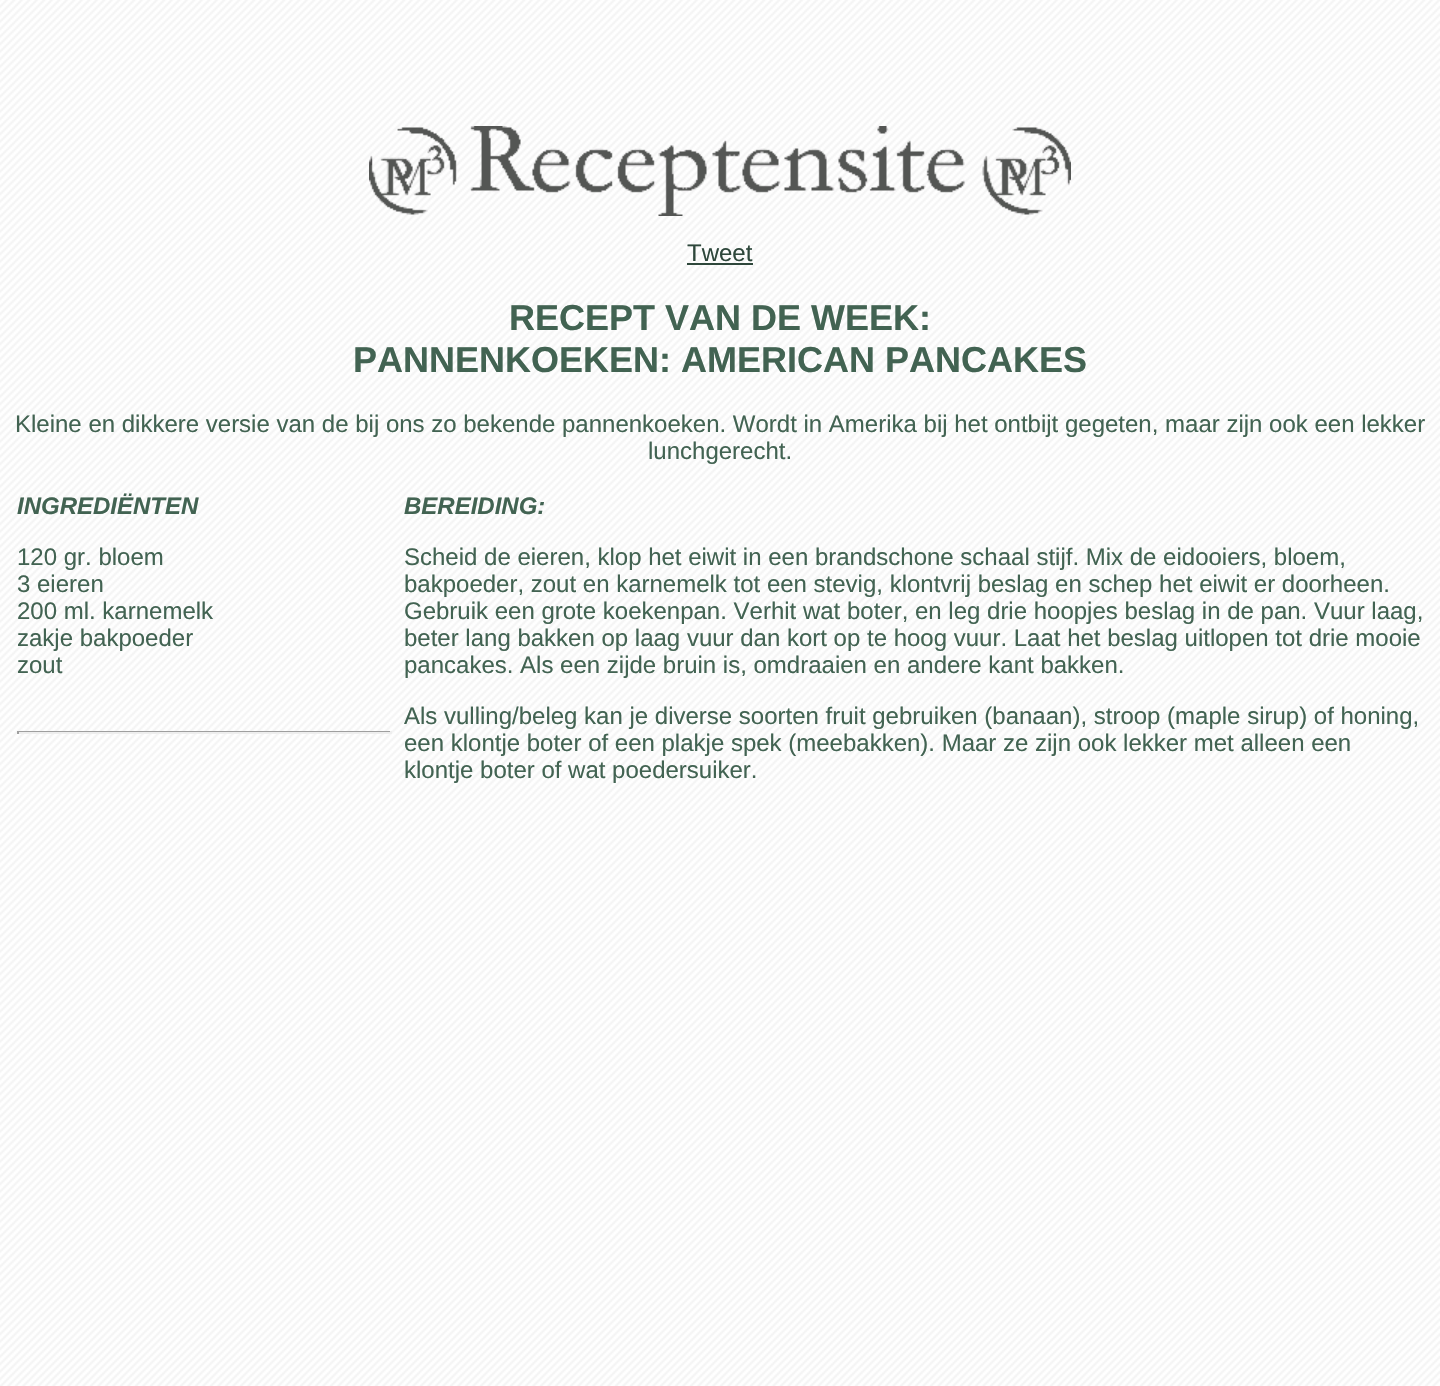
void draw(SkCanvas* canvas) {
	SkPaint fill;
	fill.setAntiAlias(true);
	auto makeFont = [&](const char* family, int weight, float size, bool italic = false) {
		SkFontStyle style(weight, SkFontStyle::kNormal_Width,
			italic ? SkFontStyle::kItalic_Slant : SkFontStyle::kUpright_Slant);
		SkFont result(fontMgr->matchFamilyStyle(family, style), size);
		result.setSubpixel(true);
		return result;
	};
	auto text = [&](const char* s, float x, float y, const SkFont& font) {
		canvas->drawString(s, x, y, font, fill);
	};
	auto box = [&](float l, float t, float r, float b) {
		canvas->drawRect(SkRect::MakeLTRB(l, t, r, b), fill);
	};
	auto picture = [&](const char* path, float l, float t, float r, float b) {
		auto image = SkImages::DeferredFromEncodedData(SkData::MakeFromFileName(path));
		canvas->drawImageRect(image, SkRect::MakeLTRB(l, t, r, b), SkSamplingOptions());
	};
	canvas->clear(0xFFFFFFFF);
	picture("image0.png", 0, 0, 1440, 1386);
	picture("image1.png", 369, 126, 1071, 216);
	fill.setColor(0xFF2E473B);
	box(687, 263, 753, 265);
	fill.setColor(0xFF9F9F9F);
	box(17, 731, 392, 732);
	fill.setColor(0xFFEEEEEE);
	box(390, 731, 392, 734);
	box(17, 732, 392, 734);
	fill.setColor(0xFF9F9F9F);
	box(17, 731, 19, 734);
	auto font1 = makeFont("Liberation Sans", 400, 24);
	fill.setColor(0xFF2E473B);
	text("Tweet", 687, 261, font1);
	auto font2 = makeFont("Liberation Sans", 700, 36);
	fill.setColor(0xFF426352);
	text("RECEPT VAN DE WEEK:", 509, 330, font2);
	text("PANNENKOEKEN: AMERICAN PANCAKES", 353, 372, font2);
	text("Kleine en dikkere versie van de bij ons zo bekende pannenkoeken. Wordt in Amerika bij het ontbijt gegeten, maar zijn ook een lekker", 15, 432, font1);
	text("lunchgerecht.", 648, 459, font1);
	auto font3 = makeFont("Liberation Sans", 700, 24, true);
	text("INGREDIËNTEN", 17, 514, font3);
	text("120 gr. bloem", 17, 565, font1);
	text("3 eieren", 17, 592, font1);
	text("200 ml. karnemelk", 17, 619, font1);
	text("zakje bakpoeder", 17, 646, font1);
	text("zout", 17, 673, font1);
	text("BEREIDING:", 404, 514, font3);
	text("Scheid de eieren, klop het eiwit in een brandschone schaal stijf. Mix de eidooiers, bloem,", 404, 565, font1);
	text("bakpoeder, zout en karnemelk tot een stevig, klontvrij beslag en schep het eiwit er doorheen.", 404, 592, font1);
	text("Gebruik een grote koekenpan. Verhit wat boter, en leg drie hoopjes beslag in de pan. Vuur laag,", 404, 619, font1);
	text("beter lang bakken op laag vuur dan kort op te hoog vuur. Laat het beslag uitlopen tot drie mooie", 404, 646, font1);
	text("pancakes. Als een zijde bruin is, omdraaien en andere kant bakken.", 404, 673, font1);
	text("Als vulling/beleg kan je diverse soorten fruit gebruiken (banaan), stroop (maple sirup) of honing,", 404, 724, font1);
	text("een klontje boter of een plakje spek (meebakken). Maar ze zijn ook lekker met alleen een", 404, 751, font1);
	text("klontje boter of wat poedersuiker.", 404, 778, font1);
}
